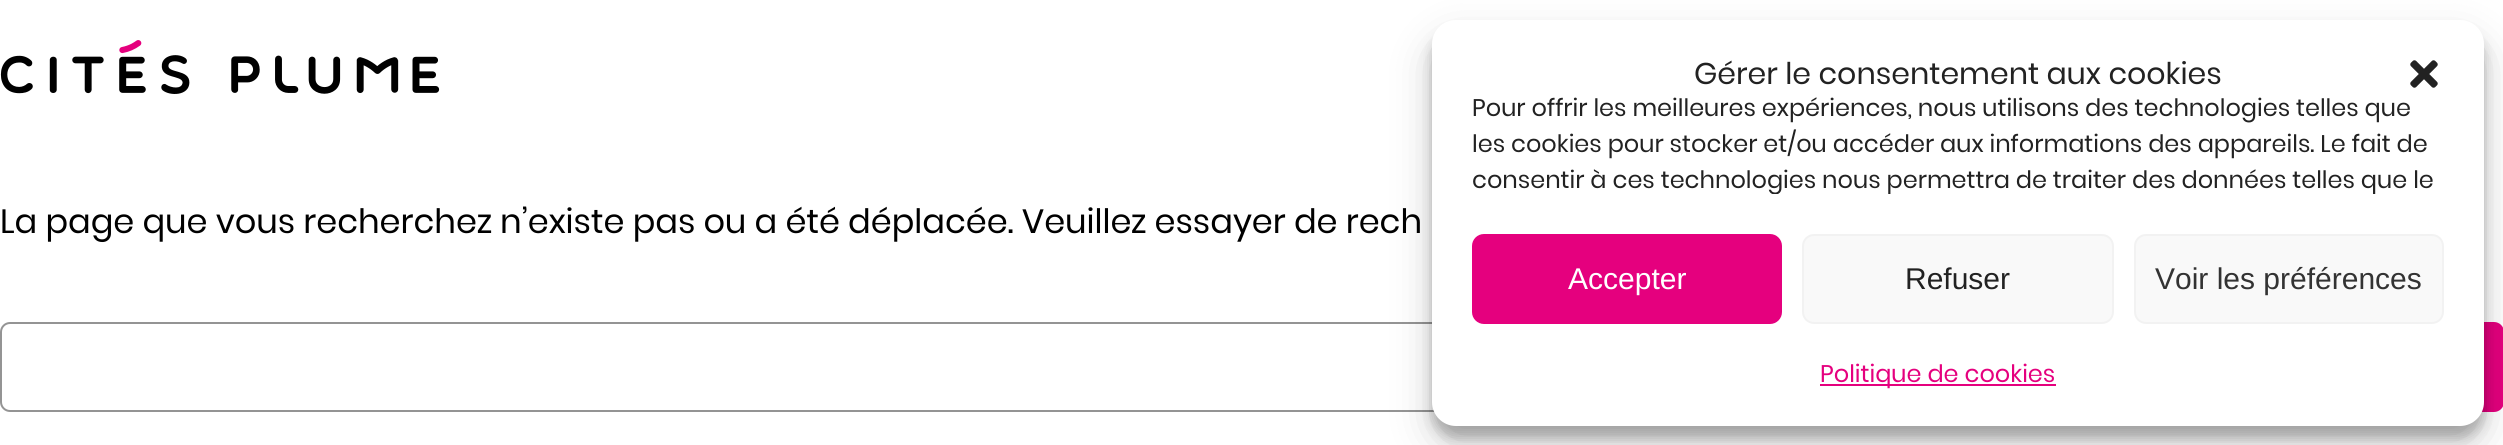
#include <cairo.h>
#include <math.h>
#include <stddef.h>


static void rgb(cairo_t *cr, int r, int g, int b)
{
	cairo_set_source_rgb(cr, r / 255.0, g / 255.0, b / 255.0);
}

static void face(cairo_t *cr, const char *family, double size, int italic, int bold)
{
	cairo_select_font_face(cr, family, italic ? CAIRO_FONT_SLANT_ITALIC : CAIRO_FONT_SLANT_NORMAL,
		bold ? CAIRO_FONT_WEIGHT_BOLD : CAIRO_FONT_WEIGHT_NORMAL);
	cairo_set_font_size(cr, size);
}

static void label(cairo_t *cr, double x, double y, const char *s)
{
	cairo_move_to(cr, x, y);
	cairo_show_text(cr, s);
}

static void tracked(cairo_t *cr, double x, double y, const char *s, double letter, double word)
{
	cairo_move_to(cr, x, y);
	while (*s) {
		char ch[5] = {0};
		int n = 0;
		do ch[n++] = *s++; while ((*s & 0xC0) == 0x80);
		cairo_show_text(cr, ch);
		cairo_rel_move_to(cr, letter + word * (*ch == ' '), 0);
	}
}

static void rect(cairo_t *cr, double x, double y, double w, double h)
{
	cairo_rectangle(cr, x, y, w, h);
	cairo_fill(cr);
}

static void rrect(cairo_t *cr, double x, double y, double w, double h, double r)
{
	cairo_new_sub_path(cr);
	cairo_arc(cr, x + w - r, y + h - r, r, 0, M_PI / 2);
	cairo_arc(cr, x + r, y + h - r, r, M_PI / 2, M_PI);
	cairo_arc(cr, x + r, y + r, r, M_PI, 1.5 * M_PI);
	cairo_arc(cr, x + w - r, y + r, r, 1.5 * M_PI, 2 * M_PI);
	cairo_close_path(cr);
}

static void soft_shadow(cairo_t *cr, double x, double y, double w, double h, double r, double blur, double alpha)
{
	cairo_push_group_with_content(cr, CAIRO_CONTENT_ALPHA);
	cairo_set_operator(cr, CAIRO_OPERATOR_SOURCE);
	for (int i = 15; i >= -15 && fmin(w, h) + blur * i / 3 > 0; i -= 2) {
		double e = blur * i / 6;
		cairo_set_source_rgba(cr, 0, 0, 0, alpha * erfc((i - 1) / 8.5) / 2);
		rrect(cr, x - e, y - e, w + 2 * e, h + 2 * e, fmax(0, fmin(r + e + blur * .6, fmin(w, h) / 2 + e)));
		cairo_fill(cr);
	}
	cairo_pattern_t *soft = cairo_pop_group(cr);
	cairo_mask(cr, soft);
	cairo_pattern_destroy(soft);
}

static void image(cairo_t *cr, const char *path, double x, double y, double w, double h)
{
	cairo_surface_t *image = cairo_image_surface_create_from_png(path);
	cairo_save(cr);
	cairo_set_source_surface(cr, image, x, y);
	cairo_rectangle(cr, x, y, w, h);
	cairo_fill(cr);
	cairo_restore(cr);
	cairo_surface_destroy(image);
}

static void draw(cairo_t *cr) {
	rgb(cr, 255, 255, 255);
	cairo_paint(cr);
	image(cr, "image0.png", 0, 40, 440, 54);
	face(cr, "Poppins", 33.6, 0, 0);
	rgb(cr, 0, 0, 0);
	tracked(cr, 0, 233, "La page que vous recherchez n’existe pas ou a été déplacée. Veuillez essayer de rech", 0, -0.1);
	rrect(cr, 1, 323, 2218, 88, 9);
	rgb(cr, 148, 148, 148);
	cairo_stroke(cr);
	rgb(cr, 229, 0, 126);
	rrect(cr, 2240, 322, 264, 90, 10);
	cairo_fill(cr);
	rgb(cr, 0, 0, 0);
	soft_shadow(cr, 1432, 32, 1052, 406, 24, 6, 0.23);
	soft_shadow(cr, 1432, 40, 1052, 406, 24, 20, 0.19);
	rgb(cr, 255, 255, 255);
	rrect(cr, 1432, 20, 1052, 406, 24);
	cairo_fill(cr);
	face(cr, "Poppins", 30, 0, 0);
	rgb(cr, 34, 34, 34);
	label(cr, 1694, 84, "Gérer le consentement aux cookies");
	image(cr, "image1.png", 2410, 60, 28, 28);
	face(cr, "Poppins", 24, 0, 0);
	label(cr, 1472, 116, "Pour offrir les meilleures expériences, nous utilisons des technologies telles que");
	label(cr, 1472, 152, "les cookies pour stocker et/ou accéder aux informations des appareils. Le fait de");
	cairo_save(cr);
	cairo_rectangle(cr, 1472, 90, 972, 104);
	cairo_clip(cr);
	label(cr, 1472, 188, "consentir à ces technologies nous permettra de traiter des données telles que le");
	cairo_restore(cr);
	rgb(cr, 229, 0, 126);
	rrect(cr, 1473, 235, 308, 88, 11);
	cairo_fill_preserve(cr);
	cairo_stroke(cr);
	face(cr, "Liberation Sans", 30, 0, 0);
	rgb(cr, 255, 255, 255);
	label(cr, 1568, 289, "Accepter");
	rgb(cr, 249, 249, 249);
	rrect(cr, 1803, 235, 310, 88, 11);
	cairo_fill_preserve(cr);
	rgb(cr, 242, 242, 242);
	cairo_stroke(cr);
	rgb(cr, 34, 34, 34);
	label(cr, 1905, 289, "Refuser");
	rgb(cr, 249, 249, 249);
	rrect(cr, 2135, 235, 308, 88, 11);
	cairo_fill_preserve(cr);
	rgb(cr, 242, 242, 242);
	cairo_stroke(cr);
	rgb(cr, 51, 51, 51);
	label(cr, 2155, 289, "Voir les préférences");
	rgb(cr, 229, 0, 126);
	rect(cr, 1820, 384, 236, 2);
	face(cr, "Poppins", 24, 0, 0);
	label(cr, 1820, 382, "Politique de cookies");
}

int main(void) {
	cairo_surface_t *surface = cairo_image_surface_create(CAIRO_FORMAT_RGB24, 2503, 445);
	cairo_t *cr = cairo_create(surface);
	cairo_font_options_t *options = cairo_font_options_create();
	cairo_font_options_set_hint_metrics(options, CAIRO_HINT_METRICS_OFF);
	cairo_font_options_set_hint_style(options, CAIRO_HINT_STYLE_NONE);
	cairo_set_font_options(cr, options);
	cairo_set_miter_limit(cr, 4);
	draw(cr);
	cairo_surface_write_to_png(surface, "render.png");
	cairo_font_options_destroy(options);
	cairo_destroy(cr);
	cairo_surface_destroy(surface);
	return 0;
}
